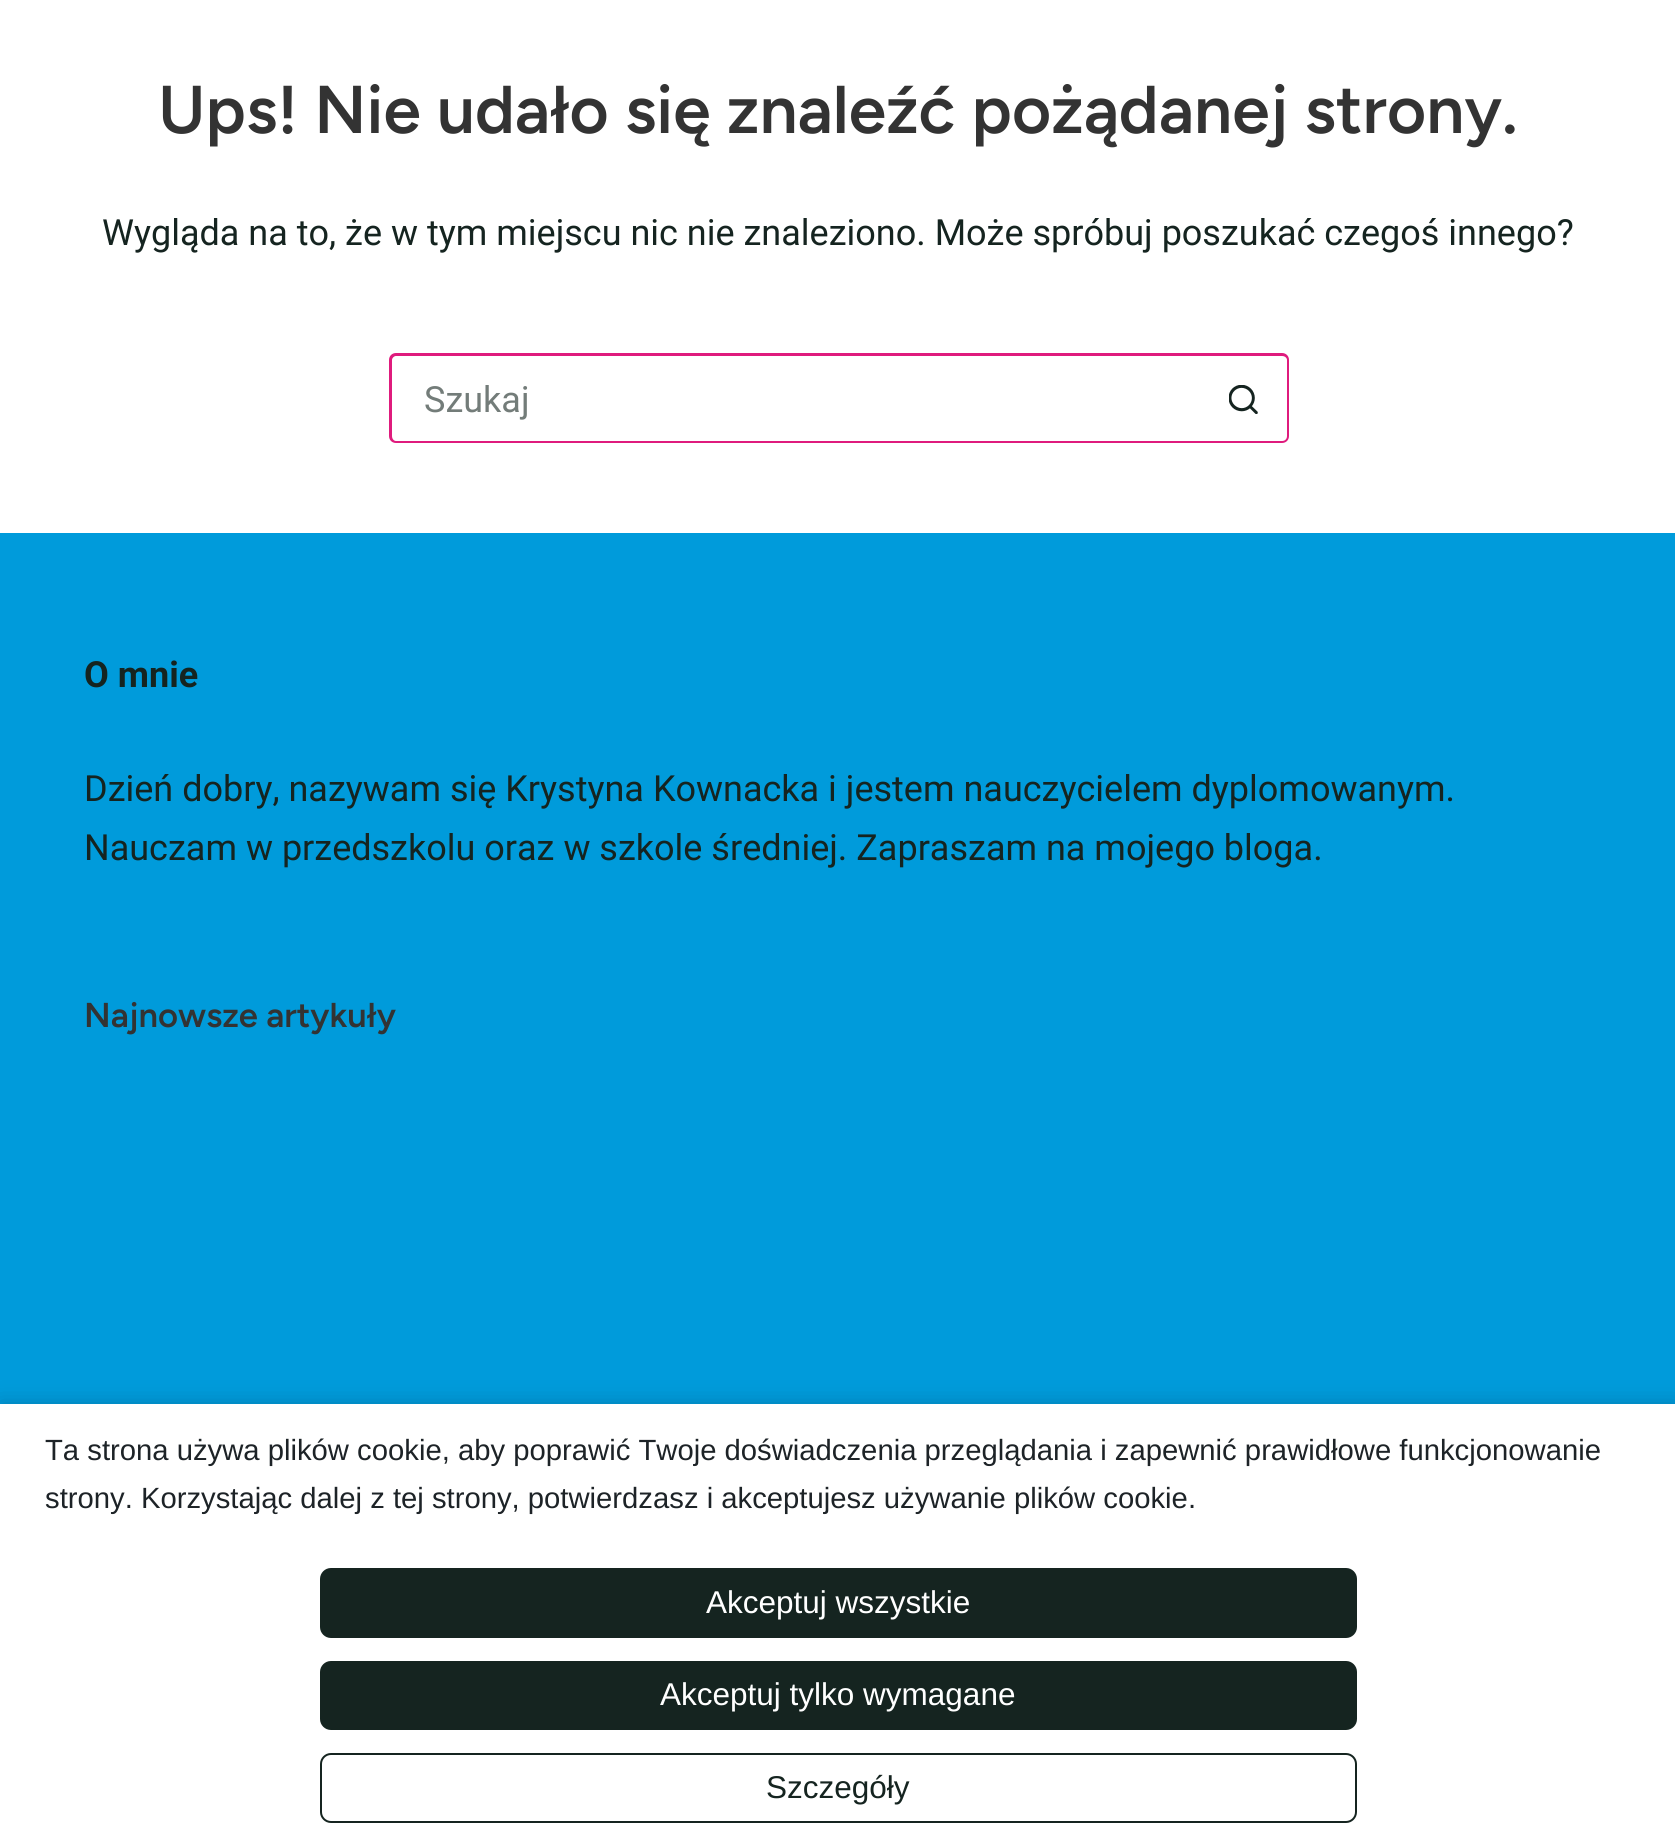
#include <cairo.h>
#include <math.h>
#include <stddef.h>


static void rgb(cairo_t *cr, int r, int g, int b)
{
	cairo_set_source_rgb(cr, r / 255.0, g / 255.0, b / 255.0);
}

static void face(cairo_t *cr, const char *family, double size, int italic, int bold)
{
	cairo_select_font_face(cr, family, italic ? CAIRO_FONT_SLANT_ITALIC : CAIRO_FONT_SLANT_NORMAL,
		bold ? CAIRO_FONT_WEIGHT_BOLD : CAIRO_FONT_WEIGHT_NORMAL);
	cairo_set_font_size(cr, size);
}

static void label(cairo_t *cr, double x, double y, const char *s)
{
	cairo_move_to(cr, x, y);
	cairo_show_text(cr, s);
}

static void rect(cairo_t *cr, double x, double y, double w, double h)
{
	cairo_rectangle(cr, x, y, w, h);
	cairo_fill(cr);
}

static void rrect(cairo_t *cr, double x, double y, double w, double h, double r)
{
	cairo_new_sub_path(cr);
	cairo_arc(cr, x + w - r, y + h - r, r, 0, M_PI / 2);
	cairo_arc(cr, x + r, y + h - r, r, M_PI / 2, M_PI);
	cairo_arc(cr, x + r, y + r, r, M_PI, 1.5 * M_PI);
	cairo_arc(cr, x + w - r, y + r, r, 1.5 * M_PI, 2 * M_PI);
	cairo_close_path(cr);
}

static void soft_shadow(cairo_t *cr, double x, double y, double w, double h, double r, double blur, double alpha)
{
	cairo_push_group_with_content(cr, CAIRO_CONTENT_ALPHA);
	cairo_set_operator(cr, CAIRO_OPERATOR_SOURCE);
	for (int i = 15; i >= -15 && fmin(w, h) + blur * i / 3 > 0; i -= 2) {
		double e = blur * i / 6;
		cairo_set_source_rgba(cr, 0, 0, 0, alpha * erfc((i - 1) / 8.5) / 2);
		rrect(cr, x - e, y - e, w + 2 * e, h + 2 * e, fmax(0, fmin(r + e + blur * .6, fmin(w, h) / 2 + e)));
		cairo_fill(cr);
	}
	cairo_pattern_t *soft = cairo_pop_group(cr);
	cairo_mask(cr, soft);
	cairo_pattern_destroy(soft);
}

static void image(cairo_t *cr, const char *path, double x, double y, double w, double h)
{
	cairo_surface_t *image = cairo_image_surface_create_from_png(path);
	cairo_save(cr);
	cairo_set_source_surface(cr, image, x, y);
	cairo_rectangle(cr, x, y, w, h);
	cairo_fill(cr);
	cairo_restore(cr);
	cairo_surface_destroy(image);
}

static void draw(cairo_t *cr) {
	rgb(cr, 255, 255, 255);
	cairo_paint(cr);
	face(cr, "Figtree SemiBold", 67.5, 0, 0);
	rgb(cr, 51, 51, 51);
	label(cr, 158, 133, "Ups! Nie udało się znaleźć pożądanej strony.");
	face(cr, "Roboto", 36, 0, 0);
	rgb(cr, 21, 36, 32);
	label(cr, 102, 245, "Wygląda na to, że w tym miejscu nic nie znaleziono. Może spróbuj poszukać czegoś innego?");
	rgb(cr, 223, 27, 125);
	cairo_set_fill_rule(cr, CAIRO_FILL_RULE_EVEN_ODD);
	cairo_new_path(cr);
	cairo_move_to(cr, 396, 353);
	cairo_line_to(cr, 1199, 353);
	cairo_line_to(cr, 1199, 443);
	cairo_line_to(cr, 396, 443);
	cairo_curve_to(cr, 392, 443, 389, 440, 389, 436);
	cairo_line_to(cr, 389, 360);
	cairo_curve_to(cr, 389, 356, 392, 353, 396, 353);
	cairo_close_path(cr);
	cairo_move_to(cr, 396, 356);
	cairo_line_to(cr, 1199, 356);
	cairo_line_to(cr, 1199, 441);
	cairo_line_to(cr, 396, 441);
	cairo_curve_to(cr, 394, 441, 392, 439, 392, 436);
	cairo_line_to(cr, 392, 360);
	cairo_curve_to(cr, 392, 358, 394, 356, 396, 356);
	cairo_close_path(cr);
	cairo_fill(cr);
	rgb(cr, 115, 124, 121);
	label(cr, 424, 412, "Szukaj");
	rgb(cr, 223, 27, 125);
	cairo_new_path(cr);
	cairo_move_to(cr, 1199, 353);
	cairo_line_to(cr, 1282, 353);
	cairo_curve_to(cr, 1286, 353, 1289, 356, 1289, 360);
	cairo_line_to(cr, 1289, 436);
	cairo_curve_to(cr, 1289, 440, 1286, 443, 1282, 443);
	cairo_line_to(cr, 1199, 443);
	cairo_close_path(cr);
	cairo_move_to(cr, 1199, 356);
	cairo_line_to(cr, 1282, 356);
	cairo_curve_to(cr, 1285, 356, 1287, 358, 1287, 360);
	cairo_line_to(cr, 1287, 436);
	cairo_curve_to(cr, 1287, 439, 1285, 441, 1282, 441);
	cairo_line_to(cr, 1199, 441);
	cairo_close_path(cr);
	cairo_fill(cr);
	image(cr, "image0.png", 1229, 385, 29, 29);
	rgb(cr, 0, 155, 219);
	rect(cr, 0, 533, 1675, 871);
	face(cr, "Roboto", 36, 0, 1);
	rgb(cr, 21, 36, 32);
	label(cr, 84, 687, "O mnie");
	face(cr, "Roboto", 36, 0, 0);
	label(cr, 84, 801, "Dzień dobry, nazywam się Krystyna Kownacka i jestem nauczycielem dyplomowanym.");
	label(cr, 84, 860, "Nauczam w przedszkolu oraz w szkole średniej. Zapraszam na mojego bloga.");
	face(cr, "Figtree SemiBold", 34.5, 0, 0);
	rgb(cr, 51, 51, 51);
	label(cr, 84, 1027, "Najnowsze artykuły");
	rgb(cr, 0, 0, 0);
	soft_shadow(cr, 0, 1404, 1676, 441, 0, 11, 0.2);
	rgb(cr, 255, 255, 255);
	rect(cr, 0, 1404, 1675, 441);
	face(cr, "Liberation Sans", 29.25, 0, 0);
	rgb(cr, 29, 35, 39);
	label(cr, 45, 1460, "Ta strona używa plików cookie, aby poprawić Twoje doświadczenia przeglądania i zapewnić prawidłowe funkcjonowanie");
	label(cr, 45, 1508, "strony. Korzystając dalej z tej strony, potwierdzasz i akceptujesz używanie plików cookie.");
	rgb(cr, 21, 36, 32);
	rrect(cr, 321, 1569, 1035, 68, 10);
	cairo_fill_preserve(cr);
	cairo_stroke(cr);
	face(cr, "Liberation Sans", 31.5, 0, 0);
	rgb(cr, 255, 255, 255);
	label(cr, 706, 1613, "Akceptuj wszystkie");
	rgb(cr, 21, 36, 32);
	rrect(cr, 321, 1662, 1035, 67, 10);
	cairo_fill_preserve(cr);
	cairo_stroke(cr);
	rgb(cr, 255, 255, 255);
	label(cr, 660, 1705, "Akceptuj tylko wymagane");
	rrect(cr, 321, 1754, 1035, 68, 10);
	rgb(cr, 21, 36, 32);
	cairo_stroke(cr);
	label(cr, 766, 1798, "Szczegóły");
}

int main(void) {
	cairo_surface_t *surface = cairo_image_surface_create(CAIRO_FORMAT_RGB24, 1675, 1845);
	cairo_t *cr = cairo_create(surface);
	cairo_font_options_t *options = cairo_font_options_create();
	cairo_font_options_set_hint_metrics(options, CAIRO_HINT_METRICS_OFF);
	cairo_font_options_set_hint_style(options, CAIRO_HINT_STYLE_NONE);
	cairo_set_font_options(cr, options);
	cairo_set_miter_limit(cr, 4);
	draw(cr);
	cairo_surface_write_to_png(surface, "render.png");
	cairo_font_options_destroy(options);
	cairo_destroy(cr);
	cairo_surface_destroy(surface);
	return 0;
}
